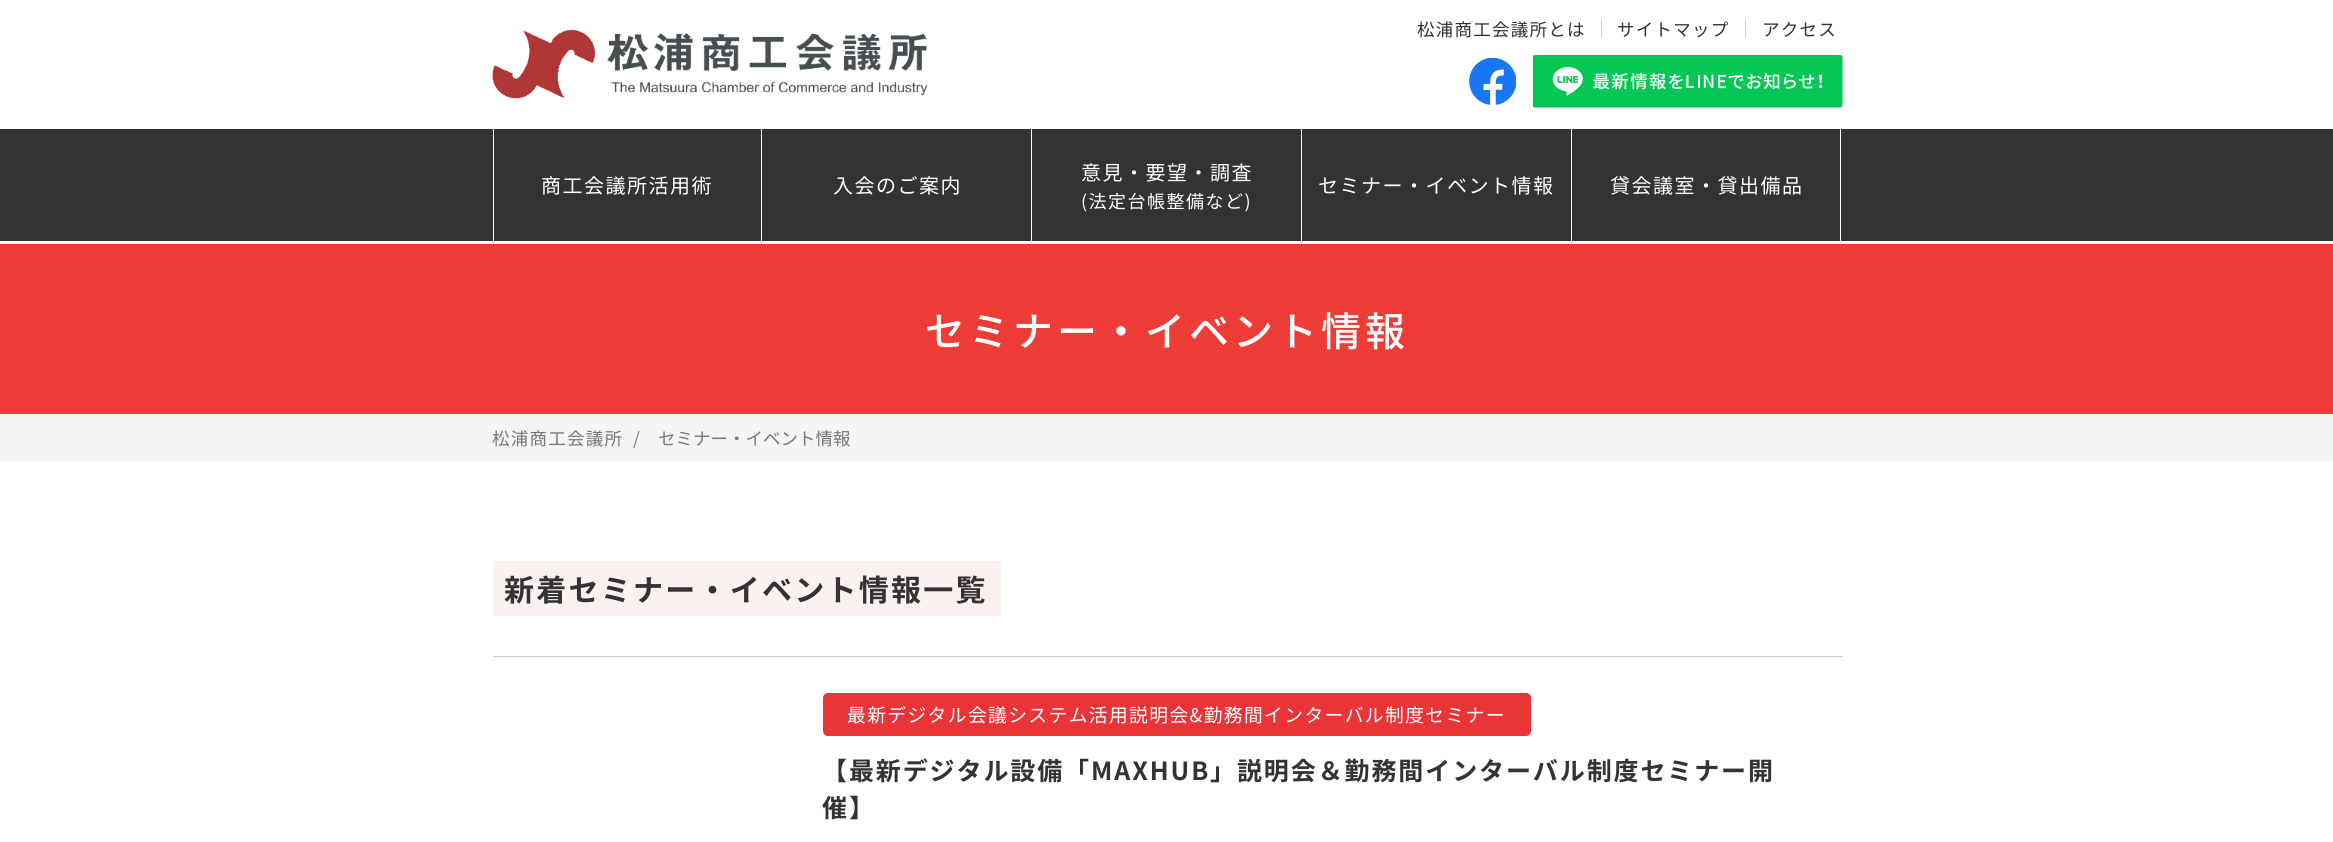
#include <cairo.h>
#include <math.h>
#include <stddef.h>


static void rgb(cairo_t *cr, int r, int g, int b)
{
	cairo_set_source_rgb(cr, r / 255.0, g / 255.0, b / 255.0);
}

static void face(cairo_t *cr, const char *family, double size, int italic, int bold)
{
	cairo_select_font_face(cr, family, italic ? CAIRO_FONT_SLANT_ITALIC : CAIRO_FONT_SLANT_NORMAL,
		bold ? CAIRO_FONT_WEIGHT_BOLD : CAIRO_FONT_WEIGHT_NORMAL);
	cairo_set_font_size(cr, size);
}

static void label(cairo_t *cr, double x, double y, const char *s)
{
	cairo_move_to(cr, x, y);
	cairo_show_text(cr, s);
}

static void tracked(cairo_t *cr, double x, double y, const char *s, double letter, double word)
{
	cairo_move_to(cr, x, y);
	while (*s) {
		char ch[5] = {0};
		int n = 0;
		do ch[n++] = *s++; while ((*s & 0xC0) == 0x80);
		cairo_show_text(cr, ch);
		cairo_rel_move_to(cr, letter + word * (*ch == ' '), 0);
	}
}

static void rect(cairo_t *cr, double x, double y, double w, double h)
{
	cairo_rectangle(cr, x, y, w, h);
	cairo_fill(cr);
}

static void rrect(cairo_t *cr, double x, double y, double w, double h, double r)
{
	cairo_new_sub_path(cr);
	cairo_arc(cr, x + w - r, y + h - r, r, 0, M_PI / 2);
	cairo_arc(cr, x + r, y + h - r, r, M_PI / 2, M_PI);
	cairo_arc(cr, x + r, y + r, r, M_PI, 1.5 * M_PI);
	cairo_arc(cr, x + w - r, y + r, r, 1.5 * M_PI, 2 * M_PI);
	cairo_close_path(cr);
}

static void image(cairo_t *cr, const char *path, double x, double y, double w, double h)
{
	cairo_surface_t *image = cairo_image_surface_create_from_png(path);
	cairo_save(cr);
	cairo_set_source_surface(cr, image, x, y);
	cairo_rectangle(cr, x, y, w, h);
	cairo_fill(cr);
	cairo_restore(cr);
	cairo_surface_destroy(image);
}

static void draw(cairo_t *cr) {
	rgb(cr, 255, 255, 255);
	cairo_paint(cr);
	image(cr, "image0.png", 492, 29, 436, 70);
	face(cr, "Noto Sans JP", 17.5, 0, 0);
	rgb(cr, 51, 51, 51);
	tracked(cr, 1417, 36, "松浦商工会議所とは", 1.25, 0);
	rgb(cr, 204, 204, 204);
	rect(cr, 1601, 20, 1, 18);
	rgb(cr, 51, 51, 51);
	tracked(cr, 1617, 36, "サイトマップ", 1.25, 0);
	rgb(cr, 204, 204, 204);
	rect(cr, 1745, 20, 1, 18);
	rgb(cr, 51, 51, 51);
	tracked(cr, 1762, 36, "アクセス", 1.25, 0);
	image(cr, "image1.png", 1469, 58, 47, 47);
	image(cr, "image2.png", 1533, 55, 310, 53);
	rect(cr, 0, 129, 2333, 112);
	rgb(cr, 255, 255, 255);
	rect(cr, 493, 129, 1, 112);
	face(cr, "Noto Sans JP", 20, 0, 0);
	tracked(cr, 541, 193, "商工会議所活用術", 1.5, 0);
	rect(cr, 761, 129, 1, 112);
	tracked(cr, 833, 193, "入会のご案内", 1.5, 0);
	rect(cr, 1031, 129, 1, 112);
	tracked(cr, 1081, 180, "意見・要望・調査", 1.5, 0);
	face(cr, "Noto Sans JP", 18, 0, 0);
	tracked(cr, 1081, 208, "(法定台帳整備など)", 1.5, 0);
	rect(cr, 1301, 129, 1, 112);
	face(cr, "Noto Sans JP", 20, 0, 0);
	tracked(cr, 1318, 193, "セミナー・イベント情報", 1.5, 0);
	rect(cr, 1840, 129, 1, 112);
	rect(cr, 1571, 129, 1, 112);
	tracked(cr, 1610, 193, "貸会議室・貸出備品", 1.5, 0);
	rgb(cr, 238, 60, 55);
	rect(cr, 0, 244, 2333, 170);
	face(cr, "Noto Sans JP Medium", 40, 0, 0);
	rgb(cr, 255, 255, 255);
	tracked(cr, 925, 346, "セミナー・イベント情報", 4, 0);
	rgb(cr, 245, 245, 245);
	rect(cr, 0, 414, 2333, 47);
	face(cr, "Noto Sans JP", 17.5, 0, 0);
	rgb(cr, 119, 119, 119);
	tracked(cr, 492, 445, "松浦商工会議所", 1.25, 0);
	tracked(cr, 633, 445, "/", 1.25, 0);
	label(cr, 658, 445, "セミナー・イベント情報");
	rgb(cr, 251, 241, 241);
	rect(cr, 493, 561, 508, 55);
	face(cr, "Noto Sans JP", 30, 0, 1);
	rgb(cr, 51, 51, 51);
	tracked(cr, 504, 601, "新着セミナー・イベント情報一覧", 2.25, 0);
	rgb(cr, 204, 204, 204);
	rect(cr, 493, 656, 1350, 1);
	rgb(cr, 234, 53, 56);
	rrect(cr, 823, 693, 708, 43, 5);
	cairo_fill(cr);
	face(cr, "Noto Sans JP", 18.75, 0, 0);
	rgb(cr, 255, 255, 255);
	tracked(cr, 847, 722, "最新デジタル会議システム活用説明会&勤務間インターバル制度セミナー", 1.4, 0);
	face(cr, "Noto Sans JP", 25, 0, 1);
	rgb(cr, 51, 51, 51);
	tracked(cr, 822, 780, "【最新デジタル設備「MAXHUB」説明会＆勤務間インターバル制度セミナー開", 1.9, 0);
	tracked(cr, 822, 817, "催】", 1.9, 0);
}

int main(void) {
	cairo_surface_t *surface = cairo_image_surface_create(CAIRO_FORMAT_RGB24, 2333, 842);
	cairo_t *cr = cairo_create(surface);
	cairo_font_options_t *options = cairo_font_options_create();
	cairo_font_options_set_hint_metrics(options, CAIRO_HINT_METRICS_OFF);
	cairo_font_options_set_hint_style(options, CAIRO_HINT_STYLE_NONE);
	cairo_set_font_options(cr, options);
	cairo_set_miter_limit(cr, 4);
	draw(cr);
	cairo_surface_write_to_png(surface, "render.png");
	cairo_font_options_destroy(options);
	cairo_destroy(cr);
	cairo_surface_destroy(surface);
	return 0;
}
